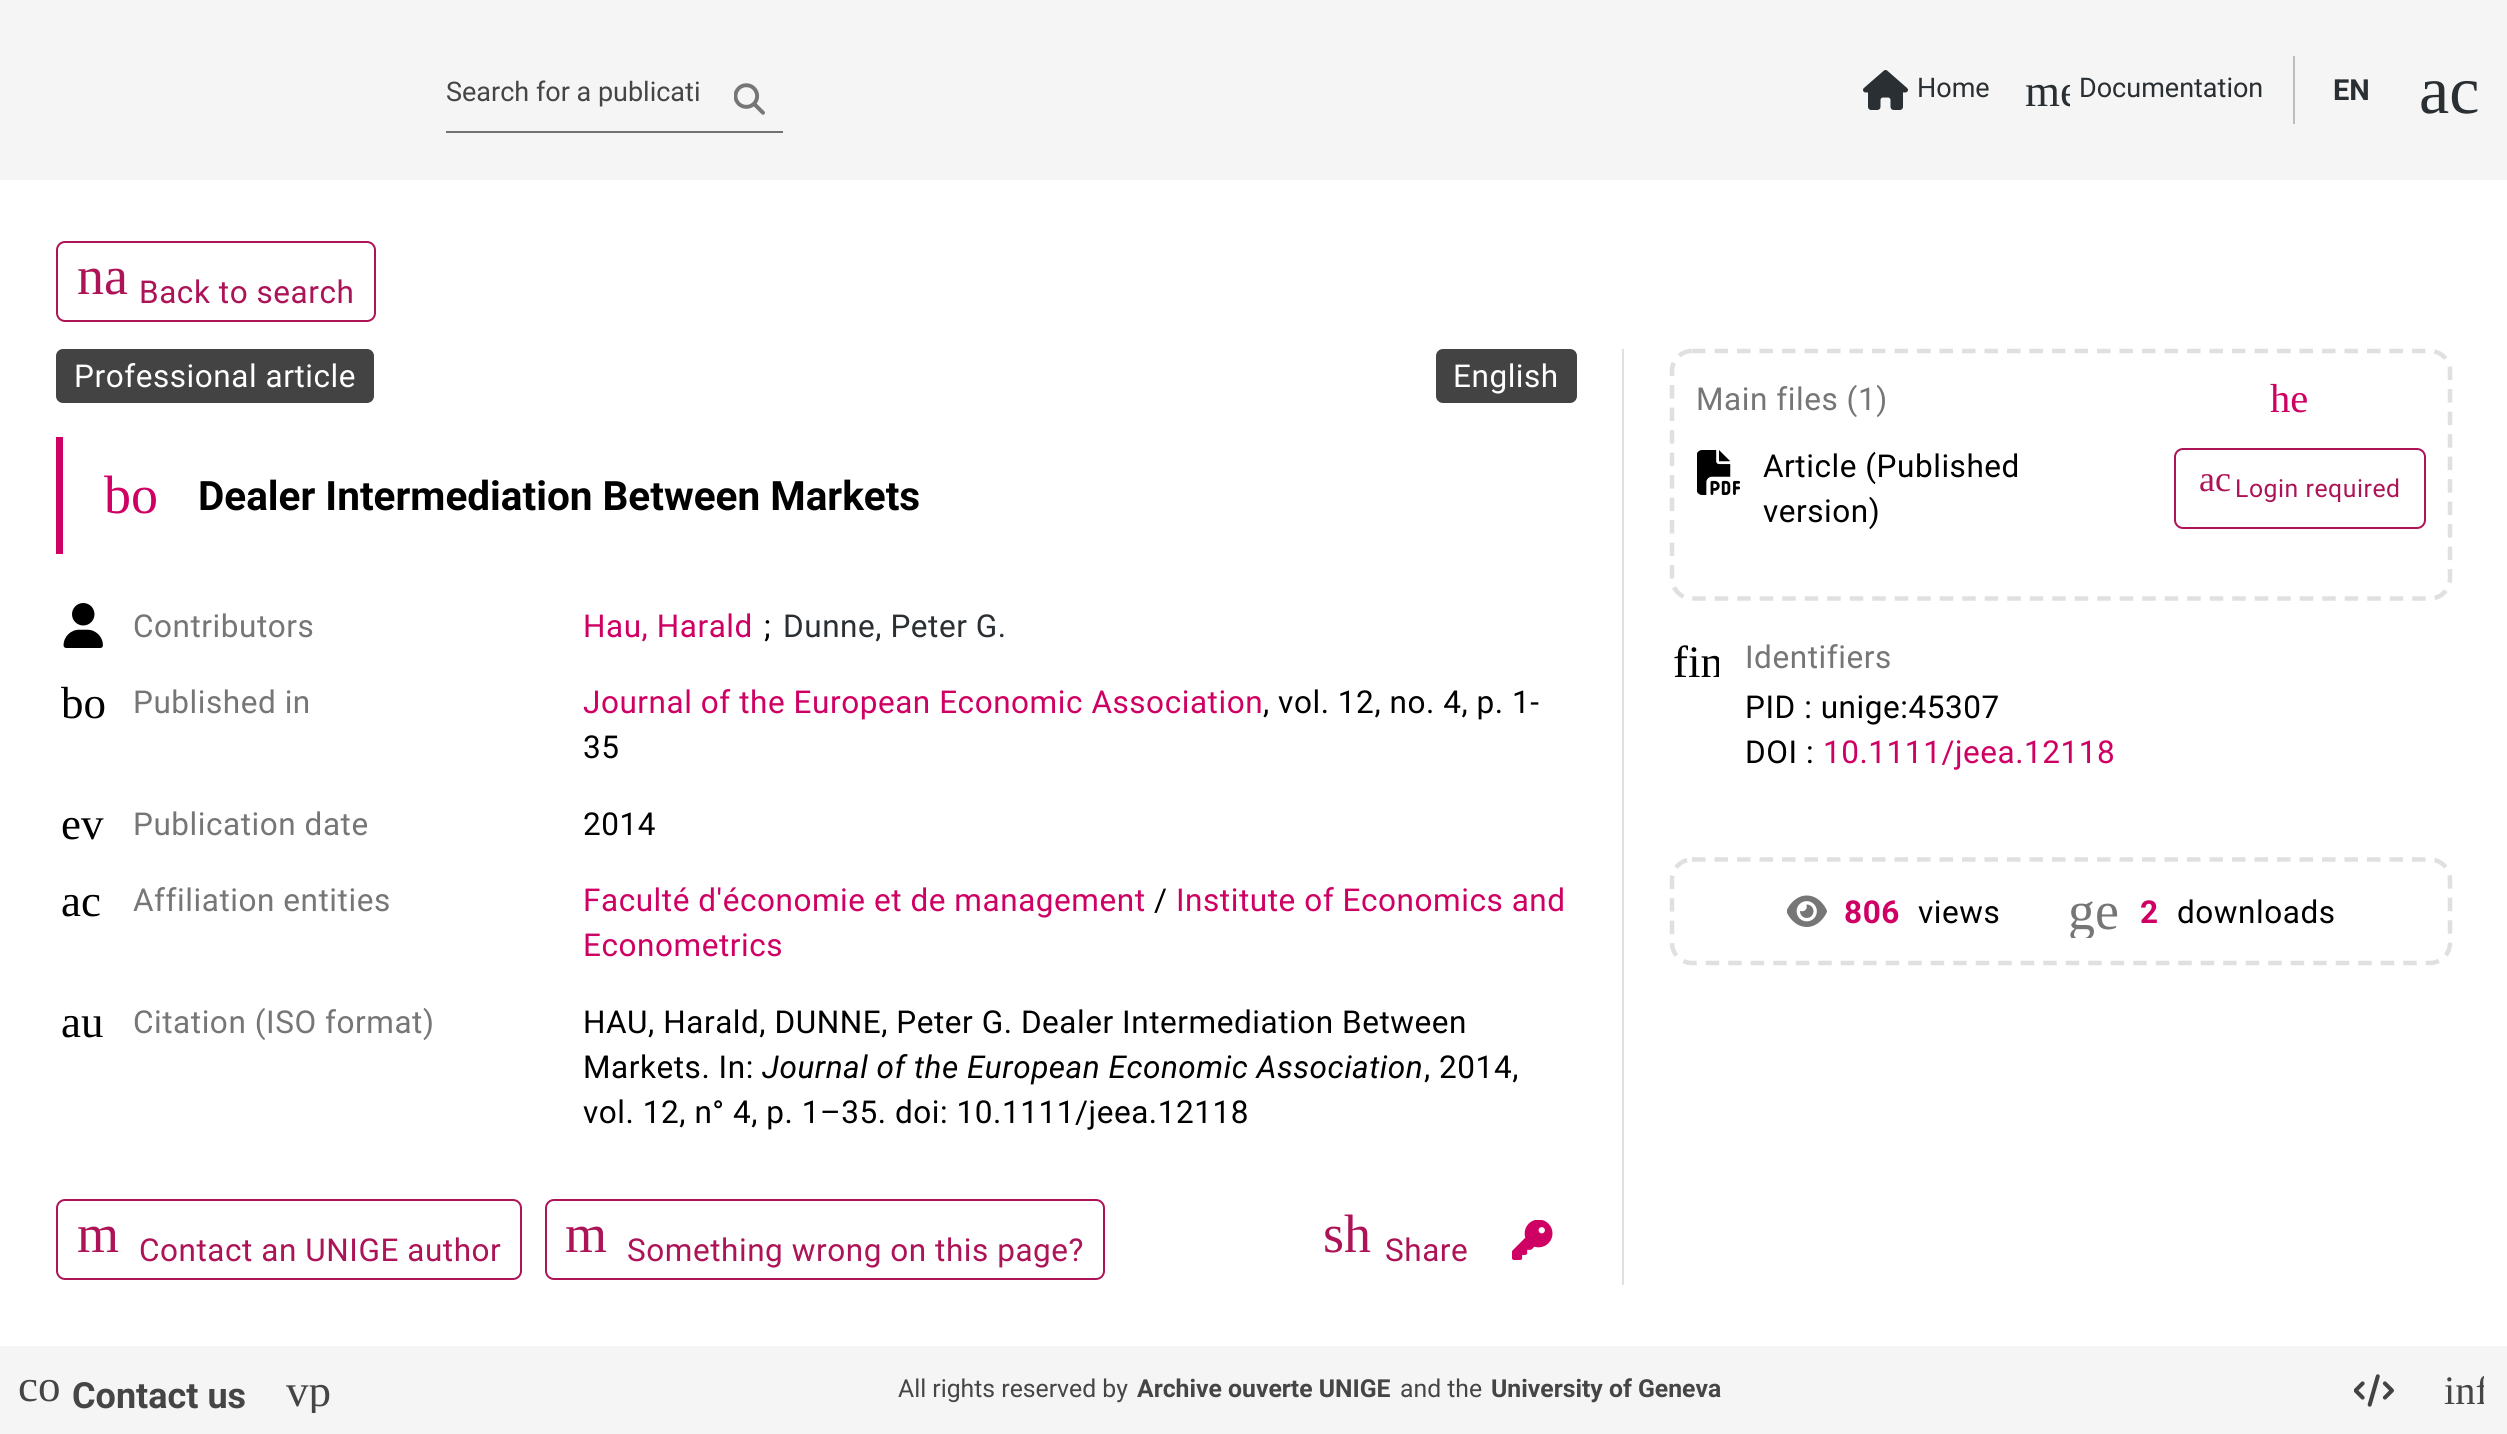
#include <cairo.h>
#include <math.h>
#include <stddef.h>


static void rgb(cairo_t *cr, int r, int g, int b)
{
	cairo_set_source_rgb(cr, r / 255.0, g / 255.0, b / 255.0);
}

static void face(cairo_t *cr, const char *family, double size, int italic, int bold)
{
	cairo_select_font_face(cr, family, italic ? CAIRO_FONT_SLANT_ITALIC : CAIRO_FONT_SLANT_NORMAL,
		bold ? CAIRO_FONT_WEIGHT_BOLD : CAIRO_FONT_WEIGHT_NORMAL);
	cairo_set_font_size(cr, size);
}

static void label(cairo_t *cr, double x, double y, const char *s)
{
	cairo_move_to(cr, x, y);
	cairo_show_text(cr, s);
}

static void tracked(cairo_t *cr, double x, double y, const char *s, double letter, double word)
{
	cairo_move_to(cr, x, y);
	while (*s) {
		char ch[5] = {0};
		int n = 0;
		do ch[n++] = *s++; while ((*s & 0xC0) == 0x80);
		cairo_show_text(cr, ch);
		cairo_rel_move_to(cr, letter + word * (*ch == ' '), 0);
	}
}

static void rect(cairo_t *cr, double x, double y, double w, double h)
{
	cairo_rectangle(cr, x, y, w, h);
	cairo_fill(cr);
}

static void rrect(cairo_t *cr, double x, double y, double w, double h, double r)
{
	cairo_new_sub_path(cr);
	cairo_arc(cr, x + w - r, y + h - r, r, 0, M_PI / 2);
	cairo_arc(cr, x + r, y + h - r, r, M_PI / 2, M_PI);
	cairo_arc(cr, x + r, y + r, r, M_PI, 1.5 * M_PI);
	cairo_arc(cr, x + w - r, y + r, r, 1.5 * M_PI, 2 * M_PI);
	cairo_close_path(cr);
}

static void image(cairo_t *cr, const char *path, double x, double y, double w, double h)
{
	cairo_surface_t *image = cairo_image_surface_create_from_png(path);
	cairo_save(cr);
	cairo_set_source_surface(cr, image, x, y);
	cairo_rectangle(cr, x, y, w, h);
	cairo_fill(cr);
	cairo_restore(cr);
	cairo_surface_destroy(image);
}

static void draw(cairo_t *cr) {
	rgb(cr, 255, 255, 255);
	cairo_paint(cr);
	rgb(cr, 245, 245, 245);
	rect(cr, 0, 0, 2507, 180);
	face(cr, "Roboto", 27, 0, 0);
	rgb(cr, 69, 69, 69);
	label(cr, 446, 101, "Search for a publicati");
	image(cr, "image0.png", 734, 83, 31, 32);
	rgb(cr, 113, 113, 113);
	rect(cr, 446, 131, 337, 2);
	image(cr, "image1.png", 1863, 70, 45, 40);
	rgb(cr, 41, 47, 51);
	label(cr, 1917, 97, "Home");
	cairo_save(cr);
	cairo_rectangle(cr, 2025, 68, 45, 45);
	cairo_clip(cr);
	face(cr, "Liberation Serif", 45, 0, 0);
	label(cr, 2025, 106, "me");
	cairo_restore(cr);
	label(cr, 2079, 97, "Documentation");
	rgb(cr, 189, 189, 189);
	rect(cr, 2293, 56, 2, 68);
	face(cr, "Roboto", 29, 0, 1);
	rgb(cr, 41, 47, 51);
	label(cr, 2333, 100, "EN");
	face(cr, "Liberation Serif", 68, 0, 0);
	label(cr, 2419, 113, "ac");
	rrect(cr, 57, 242, 318, 79, 8);
	rgb(cr, 173, 20, 87);
	cairo_stroke(cr);
	face(cr, "Liberation Serif", 54, 0, 0);
	label(cr, 77, 294, "na");
	face(cr, "Roboto", 31.5, 0, 0);
	tracked(cr, 139, 303, "Back to search", 0.55, 0);
	rgb(cr, 224, 224, 224);
	rect(cr, 1622, 349, 2, 936);
	rgb(cr, 67, 67, 67);
	rrect(cr, 56, 349, 318, 54, 7);
	cairo_fill(cr);
	rgb(cr, 255, 255, 255);
	tracked(cr, 74, 387, "Professional article", 0.55, 0);
	rgb(cr, 67, 67, 67);
	rrect(cr, 1436, 349, 141, 54, 7);
	cairo_fill(cr);
	rgb(cr, 255, 255, 255);
	tracked(cr, 1453, 387, "English", 0.55, 0);
	rgb(cr, 207, 0, 99);
	rect(cr, 56, 437, 7, 117);
	face(cr, "Liberation Serif", 54, 0, 0);
	label(cr, 104, 513, "bo");
	face(cr, "Roboto", 40.5, 0, 1);
	rgb(cr, 0, 0, 0);
	label(cr, 198, 510, "Dealer Intermediation Between Markets");
	image(cr, "image2.png", 63, 603, 40, 45);
	face(cr, "Roboto", 31.5, 0, 0);
	rgb(cr, 118, 118, 118);
	tracked(cr, 133, 637, "Contributors", 0.55, 0);
	rgb(cr, 207, 0, 99);
	tracked(cr, 583, 637, "Hau, Harald", 0.55, 0);
	rgb(cr, 0, 0, 0);
	tracked(cr, 764, 637, ";", 0.55, 0);
	rgb(cr, 41, 47, 51);
	tracked(cr, 783, 637, "Dunne, Peter G.", 0.55, 0);
	face(cr, "Liberation Serif", 45, 0, 0);
	rgb(cr, 0, 0, 0);
	label(cr, 61, 718, "bo");
	face(cr, "Roboto", 31.5, 0, 0);
	rgb(cr, 118, 118, 118);
	tracked(cr, 133, 713, "Published in", 0.55, 0);
	rgb(cr, 207, 0, 99);
	tracked(cr, 583, 713, "Journal of the European Economic Association", 0.55, 0);
	rgb(cr, 0, 0, 0);
	tracked(cr, 1263, 713, ", vol. 12, no. 4, p. 1-", 0.55, 0);
	tracked(cr, 583, 758, "35", 0.55, 0);
	face(cr, "Liberation Serif", 45, 0, 0);
	label(cr, 61, 839, "ev");
	face(cr, "Roboto", 31.5, 0, 0);
	rgb(cr, 118, 118, 118);
	tracked(cr, 133, 835, "Publication date", 0.55, 0);
	rgb(cr, 0, 0, 0);
	tracked(cr, 583, 835, "2014", 0.55, 0);
	face(cr, "Liberation Serif", 45, 0, 0);
	label(cr, 61, 916, "ac");
	face(cr, "Roboto", 31.5, 0, 0);
	rgb(cr, 118, 118, 118);
	tracked(cr, 133, 911, "Affiliation entities", 0.55, 0);
	rgb(cr, 207, 0, 99);
	tracked(cr, 583, 911, "Faculté d'économie et de management", 0.55, 0);
	rgb(cr, 0, 0, 0);
	tracked(cr, 1154, 911, "/", 0.55, 0);
	rgb(cr, 207, 0, 99);
	tracked(cr, 1176, 911, "Institute of Economics and", 0.55, 0);
	tracked(cr, 583, 956, "Econometrics", 0.55, 0);
	face(cr, "Liberation Serif", 45, 0, 0);
	rgb(cr, 0, 0, 0);
	label(cr, 61, 1037, "au");
	face(cr, "Roboto", 31.5, 0, 0);
	rgb(cr, 118, 118, 118);
	tracked(cr, 133, 1033, "Citation (ISO format)", 0.55, 0);
	rgb(cr, 0, 0, 0);
	tracked(cr, 583, 1033, "HAU, Harald, DUNNE, Peter G. Dealer Intermediation Between", 0.55, 0);
	tracked(cr, 583, 1078, "Markets. In:", 0.55, 0);
	face(cr, "Roboto", 31.5, 1, 0);
	tracked(cr, 762, 1078, "Journal of the European Economic Association", 0.55, 0);
	face(cr, "Roboto", 31.5, 0, 0);
	tracked(cr, 1424, 1078, ", 2014,", 0.55, 0);
	tracked(cr, 583, 1123, "vol. 12, n° 4, p. 1–35. doi: 10.1111/jeea.12118", 0.55, 0);
	rrect(cr, 57, 1200, 464, 79, 8);
	rgb(cr, 173, 20, 87);
	cairo_stroke(cr);
	face(cr, "Liberation Serif", 54, 0, 0);
	label(cr, 77, 1252, "m");
	face(cr, "Roboto", 31.5, 0, 0);
	tracked(cr, 139, 1261, "Contact an UNIGE author", 0.55, 0);
	rrect(cr, 546, 1200, 558, 79, 8);
	cairo_stroke(cr);
	face(cr, "Liberation Serif", 54, 0, 0);
	label(cr, 565, 1252, "m");
	face(cr, "Roboto", 31.5, 0, 0);
	tracked(cr, 627, 1261, "Something wrong on this page?", 0.55, 0);
	face(cr, "Liberation Serif", 54, 0, 0);
	label(cr, 1323, 1252, "sh");
	face(cr, "Roboto", 31.5, 0, 0);
	tracked(cr, 1385, 1261, "Share", 0.55, 0);
	image(cr, "image3.png", 1512, 1220, 41, 40);
	cairo_new_path(cr);
	cairo_move_to(cr, 1692, 351);
	cairo_line_to(cr, 2430, 351);
	cairo_curve_to(cr, 2441, 351, 2450, 360, 2450, 371);
	cairo_line_to(cr, 2450, 578);
	cairo_curve_to(cr, 2450, 589.5, 2441, 598.5, 2430, 598.5);
	cairo_line_to(cr, 1692, 598.5);
	cairo_curve_to(cr, 1681, 598.5, 1672, 589.5, 1672, 578);
	cairo_line_to(cr, 1672, 371);
	cairo_curve_to(cr, 1672, 360, 1681, 351, 1692, 351);
	cairo_close_path(cr);
	rgb(cr, 224, 224, 224);
	cairo_set_line_width(cr, 4.5);
	cairo_set_dash(cr, (double[]){13.5, 9}, 2, 0);
	cairo_stroke(cr);
	rgb(cr, 118, 118, 118);
	tracked(cr, 1696, 410, "Main files (1)", 0.55, 0);
	face(cr, "Liberation Serif", 40.5, 0, 0);
	rgb(cr, 207, 0, 99);
	label(cr, 2270, 412, "he");
	image(cr, "image4.png", 1697, 450, 44, 45);
	face(cr, "Roboto", 31.5, 0, 0);
	rgb(cr, 0, 0, 0);
	tracked(cr, 1763, 477, "Article (Published", 0.55, 0);
	tracked(cr, 1763, 522, "version)", 0.55, 0);
	rrect(cr, 2175, 449, 250, 79, 8);
	rgb(cr, 173, 20, 87);
	cairo_set_line_width(cr, 2);
	cairo_set_dash(cr, NULL, 0, 0);
	cairo_stroke(cr);
	face(cr, "Liberation Serif", 36, 0, 0);
	label(cr, 2199, 491, "ac");
	face(cr, "Roboto", 24.75, 0, 0);
	tracked(cr, 2235, 497, "Login required", 0.55, 0);
	cairo_save(cr);
	cairo_rectangle(cr, 1674, 639, 45, 45);
	cairo_clip(cr);
	face(cr, "Liberation Serif", 45, 0, 0);
	rgb(cr, 0, 0, 0);
	label(cr, 1673, 677, "fin");
	cairo_restore(cr);
	face(cr, "Roboto", 31.5, 0, 0);
	rgb(cr, 118, 118, 118);
	tracked(cr, 1745, 668, "Identifiers", 0.55, 0);
	rgb(cr, 0, 0, 0);
	tracked(cr, 1745, 718, "PID : unige:45307", 0.55, 0);
	tracked(cr, 1745, 763, "DOI :", 0.55, 0);
	rgb(cr, 207, 0, 99);
	tracked(cr, 1823, 763, "10.1111/jeea.12118", 0.55, 0);
	cairo_new_path(cr);
	cairo_move_to(cr, 1692, 859.5);
	cairo_line_to(cr, 2430, 859.5);
	cairo_curve_to(cr, 2441, 859.5, 2450, 868.5, 2450, 880);
	cairo_line_to(cr, 2450, 943);
	cairo_curve_to(cr, 2450, 954, 2441, 963, 2430, 963);
	cairo_line_to(cr, 1692, 963);
	cairo_curve_to(cr, 1681, 963, 1672, 954, 1672, 943);
	cairo_line_to(cr, 1672, 880);
	cairo_curve_to(cr, 1672, 868.5, 1681, 859.5, 1692, 859.5);
	cairo_close_path(cr);
	rgb(cr, 224, 224, 224);
	cairo_set_line_width(cr, 4.5);
	cairo_set_dash(cr, (double[]){13.5, 9}, 2, 0);
	cairo_stroke(cr);
	image(cr, "image5.png", 1787, 895, 40, 32);
	face(cr, "Roboto", 31.5, 0, 1);
	rgb(cr, 207, 0, 99);
	tracked(cr, 1844, 923, "806", 0.55, 0);
	face(cr, "Roboto", 31.5, 0, 0);
	rgb(cr, 0, 0, 0);
	tracked(cr, 1918, 923, "views", 0.55, 0);
	cairo_save(cr);
	cairo_rectangle(cr, 2068, 884, 54, 54);
	cairo_clip(cr);
	face(cr, "Liberation Serif", 54, 0, 0);
	rgb(cr, 118, 118, 118);
	label(cr, 2068, 929, "ge");
	cairo_restore(cr);
	face(cr, "Roboto", 31.5, 0, 1);
	rgb(cr, 207, 0, 99);
	tracked(cr, 2140, 923, "2", 0.55, 0);
	face(cr, "Roboto", 31.5, 0, 0);
	rgb(cr, 0, 0, 0);
	tracked(cr, 2177, 923, "downloads", 0.55, 0);
	rgb(cr, 245, 245, 245);
	rect(cr, 0, 1346, 2507, 88);
	face(cr, "Liberation Serif", 45, 0, 0);
	rgb(cr, 69, 69, 69);
	label(cr, 18, 1401, "co");
	face(cr, "Roboto", 36, 0, 1);
	label(cr, 72, 1408, "Contact us");
	cairo_save(cr);
	cairo_rectangle(cr, 286, 1368, 45, 45);
	cairo_clip(cr);
	face(cr, "Liberation Serif", 45, 0, 0);
	label(cr, 286, 1406, "vp");
	cairo_restore(cr);
	face(cr, "Roboto", 24.75, 0, 0);
	label(cr, 898, 1397, "All rights reserved by");
	face(cr, "Roboto", 24.75, 0, 1);
	label(cr, 1137, 1397, "Archive ouverte UNIGE");
	face(cr, "Roboto", 24.75, 0, 0);
	label(cr, 1400, 1397, "and the");
	face(cr, "Roboto", 24.75, 0, 1);
	label(cr, 1491, 1397, "University of Geneva");
	image(cr, "image6.png", 2354, 1374, 40, 33);
	cairo_save(cr);
	cairo_rectangle(cr, 2444, 1370, 40, 41);
	cairo_clip(cr);
	face(cr, "Liberation Serif", 40.5, 0, 0);
	label(cr, 2444, 1404, "inf");
	cairo_restore(cr);
}

int main(void) {
	cairo_surface_t *surface = cairo_image_surface_create(CAIRO_FORMAT_RGB24, 2507, 1434);
	cairo_t *cr = cairo_create(surface);
	cairo_font_options_t *options = cairo_font_options_create();
	cairo_font_options_set_hint_metrics(options, CAIRO_HINT_METRICS_OFF);
	cairo_font_options_set_hint_style(options, CAIRO_HINT_STYLE_NONE);
	cairo_set_font_options(cr, options);
	cairo_set_miter_limit(cr, 4);
	draw(cr);
	cairo_surface_write_to_png(surface, "render.png");
	cairo_font_options_destroy(options);
	cairo_destroy(cr);
	cairo_surface_destroy(surface);
	return 0;
}
